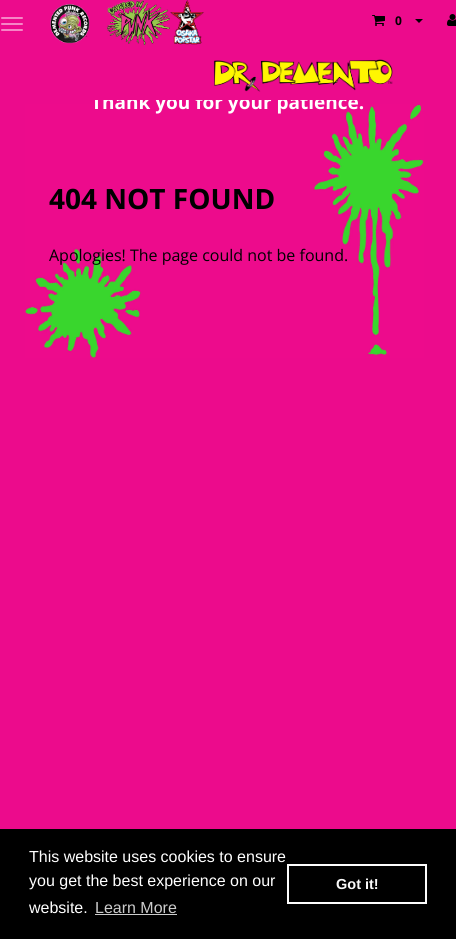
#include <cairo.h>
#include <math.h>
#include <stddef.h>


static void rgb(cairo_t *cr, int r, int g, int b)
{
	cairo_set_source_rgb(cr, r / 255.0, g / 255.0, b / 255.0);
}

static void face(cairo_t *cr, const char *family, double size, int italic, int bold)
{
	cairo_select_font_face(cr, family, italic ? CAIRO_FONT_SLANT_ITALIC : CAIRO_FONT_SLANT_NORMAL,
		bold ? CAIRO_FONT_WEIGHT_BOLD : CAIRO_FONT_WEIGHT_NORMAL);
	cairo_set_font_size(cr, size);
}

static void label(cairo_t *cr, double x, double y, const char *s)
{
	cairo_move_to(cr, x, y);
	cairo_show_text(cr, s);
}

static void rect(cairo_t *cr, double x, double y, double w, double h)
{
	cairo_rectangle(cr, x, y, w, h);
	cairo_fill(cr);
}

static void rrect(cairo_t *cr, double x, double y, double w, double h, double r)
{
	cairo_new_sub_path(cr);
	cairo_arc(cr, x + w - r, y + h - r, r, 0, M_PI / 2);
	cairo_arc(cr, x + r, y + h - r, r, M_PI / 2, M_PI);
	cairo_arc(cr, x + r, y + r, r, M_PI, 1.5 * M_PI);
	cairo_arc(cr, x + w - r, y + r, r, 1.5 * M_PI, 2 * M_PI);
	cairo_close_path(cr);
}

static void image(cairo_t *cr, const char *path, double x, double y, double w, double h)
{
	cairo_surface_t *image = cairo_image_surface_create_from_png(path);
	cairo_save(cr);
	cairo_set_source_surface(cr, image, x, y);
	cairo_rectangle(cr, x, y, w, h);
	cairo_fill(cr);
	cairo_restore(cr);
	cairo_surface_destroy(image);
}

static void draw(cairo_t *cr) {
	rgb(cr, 236, 11, 140);
	cairo_paint(cr);
	image(cr, "image0.png", 25, 104, 399, 254);
	face(cr, "Open Sans", 19, 0, 1);
	rgb(cr, 255, 255, 255);
	label(cr, 91, 109, "Thank you for your patience.");
	rgb(cr, 236, 11, 140);
	rect(cr, 91, 94, 267, 6);
	rgb(cr, 246, 133, 198);
	rrect(cr, 1, 17, 22, 2, 1);
	cairo_fill(cr);
	rrect(cr, 1, 23, 22, 2, 1);
	cairo_fill(cr);
	rrect(cr, 1, 29, 22, 2, 1);
	cairo_fill(cr);
	image(cr, "image1.png", 50, 4, 40, 40);
	image(cr, "image2.png", 107, 0, 63, 45);
	image(cr, "image3.png", 170, 0, 34, 45);
	image(cr, "image4.png", 372, 15, 13, 11);
	face(cr, "Open Sans", 12, 0, 1);
	rgb(cr, 0, 0, 0);
	label(cr, 395, 25, "0");
	cairo_new_path(cr);
	cairo_move_to(cr, 415, 19);
	cairo_line_to(cr, 423, 19);
	cairo_line_to(cr, 419, 23);
	cairo_close_path(cr);
	cairo_fill(cr);
	image(cr, "image5.png", 447, 14, 9, 12);
	image(cr, "image6.png", 213, 59, 180, 33);
	face(cr, "Open Sans", 28, 0, 1);
	label(cr, 49, 209, "404 NOT FOUND");
	face(cr, "Open Sans", 16, 0, 0);
	label(cr, 49, 261, "Apologies! The page could not be found.");
	rect(cr, 0, 829, 456, 110);
	face(cr, "Liberation Sans", 16, 0, 0);
	rgb(cr, 255, 255, 255);
	label(cr, 29, 862, "This website uses cookies to ensure");
	label(cr, 29, 886, "you get the best experience on our");
	label(cr, 29, 913, "website.");
	rgb(cr, 204, 204, 204);
	label(cr, 95, 913, "Learn More");
	rect(cr, 95, 914, 82, 1);
	cairo_rectangle(cr, 288, 865, 138, 38);
	rgb(cr, 253, 253, 253);
	cairo_stroke(cr);
	face(cr, "Liberation Sans", 14.5, 0, 1);
	rgb(cr, 249, 249, 249);
	label(cr, 336, 889, "Got it!");
}

int main(void) {
	cairo_surface_t *surface = cairo_image_surface_create(CAIRO_FORMAT_RGB24, 456, 939);
	cairo_t *cr = cairo_create(surface);
	cairo_font_options_t *options = cairo_font_options_create();
	cairo_font_options_set_hint_metrics(options, CAIRO_HINT_METRICS_OFF);
	cairo_font_options_set_hint_style(options, CAIRO_HINT_STYLE_NONE);
	cairo_set_font_options(cr, options);
	cairo_set_miter_limit(cr, 4);
	draw(cr);
	cairo_surface_write_to_png(surface, "render.png");
	cairo_font_options_destroy(options);
	cairo_destroy(cr);
	cairo_surface_destroy(surface);
	return 0;
}
